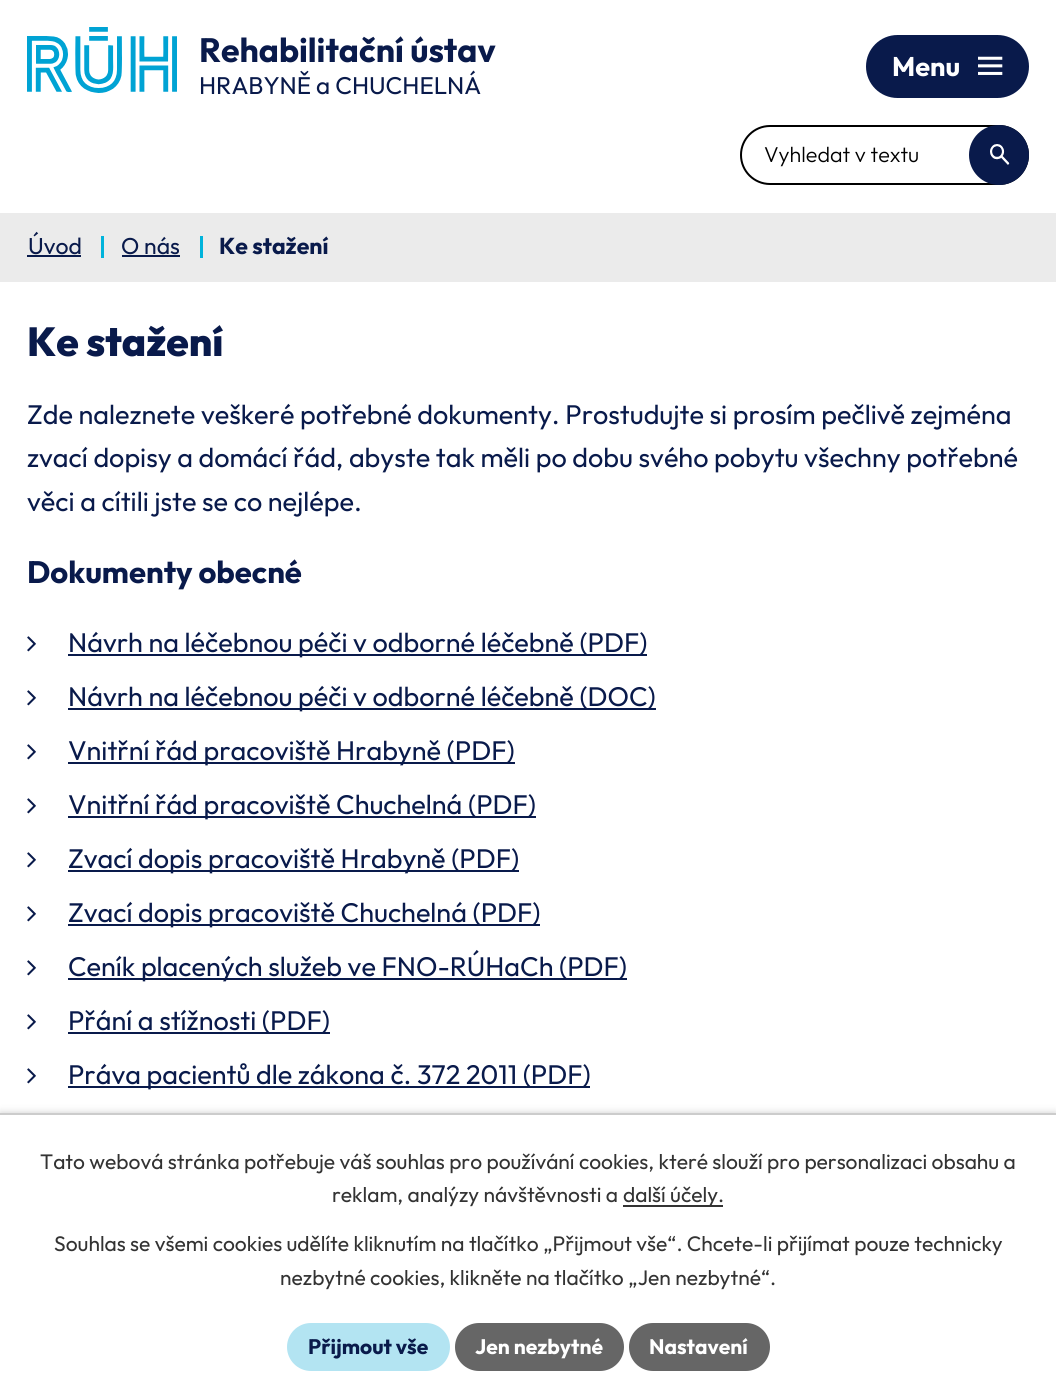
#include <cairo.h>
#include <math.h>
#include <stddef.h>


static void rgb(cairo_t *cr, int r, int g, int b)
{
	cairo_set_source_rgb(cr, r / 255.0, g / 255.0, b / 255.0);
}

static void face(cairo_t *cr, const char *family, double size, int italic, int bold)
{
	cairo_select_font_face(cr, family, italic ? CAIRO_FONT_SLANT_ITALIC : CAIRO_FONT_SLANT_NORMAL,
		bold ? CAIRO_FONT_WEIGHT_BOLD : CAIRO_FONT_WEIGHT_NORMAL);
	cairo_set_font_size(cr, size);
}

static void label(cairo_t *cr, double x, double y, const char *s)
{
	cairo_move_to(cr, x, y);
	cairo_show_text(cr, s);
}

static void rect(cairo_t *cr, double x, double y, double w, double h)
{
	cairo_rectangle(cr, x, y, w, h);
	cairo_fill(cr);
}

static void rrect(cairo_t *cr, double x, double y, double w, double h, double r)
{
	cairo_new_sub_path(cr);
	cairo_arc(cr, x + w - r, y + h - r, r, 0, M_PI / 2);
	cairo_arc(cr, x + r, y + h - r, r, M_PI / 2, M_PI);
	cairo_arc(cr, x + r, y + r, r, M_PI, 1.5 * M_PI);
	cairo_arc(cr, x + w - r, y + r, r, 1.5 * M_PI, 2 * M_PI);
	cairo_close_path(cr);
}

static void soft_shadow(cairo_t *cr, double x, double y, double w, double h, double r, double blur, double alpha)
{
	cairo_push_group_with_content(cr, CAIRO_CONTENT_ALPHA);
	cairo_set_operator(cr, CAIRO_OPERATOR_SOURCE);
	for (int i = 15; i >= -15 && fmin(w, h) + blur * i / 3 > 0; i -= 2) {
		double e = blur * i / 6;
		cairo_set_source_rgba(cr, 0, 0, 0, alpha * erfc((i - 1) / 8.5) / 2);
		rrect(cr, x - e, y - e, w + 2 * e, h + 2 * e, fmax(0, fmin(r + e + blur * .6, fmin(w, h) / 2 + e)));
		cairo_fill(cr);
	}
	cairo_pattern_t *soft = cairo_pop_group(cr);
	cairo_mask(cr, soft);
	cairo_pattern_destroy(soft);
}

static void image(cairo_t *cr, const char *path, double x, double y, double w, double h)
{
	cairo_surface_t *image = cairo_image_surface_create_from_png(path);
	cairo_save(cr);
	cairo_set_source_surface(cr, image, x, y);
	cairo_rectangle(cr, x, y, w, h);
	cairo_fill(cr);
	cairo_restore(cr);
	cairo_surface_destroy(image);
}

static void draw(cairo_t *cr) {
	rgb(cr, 255, 255, 255);
	cairo_paint(cr);
	image(cr, "image0.png", 27, 27, 150, 66);
	face(cr, "Outfit", 33.75, 0, 1);
	rgb(cr, 9, 26, 75);
	label(cr, 199, 62, "Rehabilitační ústav");
	face(cr, "Outfit", 24.25, 0, 0);
	label(cr, 199, 94, "HRABYNĚ a CHUCHELNÁ");
	rrect(cr, 741, 126, 287, 58, 29);
	rgb(cr, 0, 0, 0);
	cairo_stroke(cr);
	face(cr, "Outfit Light", 21.5, 0, 0);
	label(cr, 764, 162, "Vyhledat v textu");
	rgb(cr, 9, 26, 75);
	cairo_new_path(cr);
	cairo_arc(cr, 999, 155, 30, 0, 2 * M_PI);
	cairo_fill(cr);
	image(cr, "image1.png", 990, 144, 20, 21);
	rrect(cr, 866, 35, 163, 63, 31.5);
	cairo_fill(cr);
	face(cr, "Outfit", 27, 0, 1);
	rgb(cr, 255, 255, 255);
	label(cr, 892, 76, "Menu");
	image(cr, "image2.png", 978, 56, 25, 19);
	rgb(cr, 235, 235, 235);
	rect(cr, 0, 213, 1056, 69);
	face(cr, "Outfit", 23, 0, 0);
	rgb(cr, 9, 26, 75);
	label(cr, 28, 254, "Úvod");
	rect(cr, 27, 255, 54, 2);
	rgb(cr, 0, 179, 219);
	rect(cr, 101, 236, 3, 22);
	rgb(cr, 9, 26, 75);
	label(cr, 121, 254, "O nás");
	rect(cr, 122, 255, 58, 2);
	rgb(cr, 0, 179, 219);
	rect(cr, 200, 236, 3, 22);
	face(cr, "Outfit", 23, 0, 1);
	rgb(cr, 9, 26, 75);
	label(cr, 219, 254, "Ke stažení");
	face(cr, "Outfit ExtraBold", 40.5, 0, 0);
	label(cr, 27, 356, "Ke stažení");
	face(cr, "Outfit", 27, 0, 0);
	label(cr, 27, 424, "Zde naleznete veškeré potřebné dokumenty. Prostudujte si prosím pečlivě zejména");
	label(cr, 27, 467, "zvací dopisy a domácí řád, abyste tak měli po dobu svého pobytu všechny potřebné");
	label(cr, 27, 511, "věci a cítili jste se co nejlépe.");
	face(cr, "Outfit", 31, 0, 1);
	label(cr, 27, 583, "Dokumenty obecné");
	image(cr, "image3.png", 27, 636, 9, 16);
	rect(cr, 68, 654, 579, 2);
	face(cr, "Outfit", 27, 0, 0);
	label(cr, 68, 652, "Návrh na léčebnou péči v odborné léčebně (PDF)");
	image(cr, "image3.png", 27, 690, 9, 16);
	rect(cr, 68, 708, 588, 2);
	label(cr, 68, 706, "Návrh na léčebnou péči v odborné léčebně (DOC)");
	image(cr, "image3.png", 27, 744, 9, 16);
	rect(cr, 68, 762, 447, 2);
	label(cr, 68, 760, "Vnitřní řád pracoviště Hrabyně (PDF)");
	image(cr, "image3.png", 27, 798, 9, 16);
	rect(cr, 68, 816, 468, 2);
	label(cr, 68, 814, "Vnitřní řád pracoviště Chuchelná (PDF)");
	image(cr, "image3.png", 27, 852, 9, 16);
	rect(cr, 68, 870, 451, 2);
	label(cr, 68, 868, "Zvací dopis pracoviště Hrabyně (PDF)");
	image(cr, "image3.png", 27, 906, 9, 16);
	rect(cr, 68, 924, 472, 2);
	label(cr, 68, 922, "Zvací dopis pracoviště Chuchelná (PDF)");
	image(cr, "image3.png", 27, 960, 9, 16);
	rect(cr, 68, 978, 559, 2);
	label(cr, 68, 976, "Ceník placených služeb ve FNO-RÚHaCh (PDF)");
	image(cr, "image3.png", 27, 1014, 9, 16);
	rect(cr, 68, 1032, 262, 2);
	label(cr, 68, 1030, "Přání a stížnosti (PDF)");
	image(cr, "image3.png", 27, 1068, 9, 16);
	rect(cr, 68, 1086, 522, 2);
	label(cr, 68, 1084, "Práva pacientů dle zákona č. 372 2011 (PDF)");
	rgb(cr, 0, 0, 0);
	soft_shadow(cr, 0, 1113, 1056, 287, 0, 4, 0.2);
	rgb(cr, 255, 255, 255);
	rect(cr, 0, 1115, 1056, 284);
	rgb(cr, 204, 204, 204);
	rect(cr, 0, 1113, 1056, 2);
	face(cr, "Outfit", 21, 0, 0);
	rgb(cr, 51, 51, 51);
	label(cr, 40, 1169, "Tato webová stránka potřebuje váš souhlas pro používání cookies, které slouží pro personalizaci obsahu a");
	label(cr, 332, 1202, "reklam, analýzy návštěvnosti a");
	rect(cr, 623, 1205, 100, 2);
	label(cr, 623, 1202, "další účely.");
	label(cr, 54, 1251, "Souhlas se všemi cookies udělíte kliknutím na tlačítko „Přijmout vše“. Chcete-li přijímat pouze technicky");
	label(cr, 280, 1285, "nezbytné cookies, klikněte na tlačítko „Jen nezbytné“.");
	rgb(cr, 179, 228, 242);
	rrect(cr, 287, 1323, 163, 48, 24);
	cairo_fill(cr);
	face(cr, "Outfit", 21, 0, 1);
	rgb(cr, 9, 26, 75);
	label(cr, 308, 1354, "Přijmout vše");
	rgb(cr, 102, 102, 102);
	rrect(cr, 455, 1323, 169, 48, 24);
	cairo_fill(cr);
	rgb(cr, 255, 255, 255);
	label(cr, 475, 1354, "Jen nezbytné");
	rgb(cr, 102, 102, 102);
	rrect(cr, 629, 1323, 141, 48, 24);
	cairo_fill(cr);
	rgb(cr, 255, 255, 255);
	label(cr, 649, 1354, "Nastavení");
}

int main(void) {
	cairo_surface_t *surface = cairo_image_surface_create(CAIRO_FORMAT_RGB24, 1056, 1399);
	cairo_t *cr = cairo_create(surface);
	cairo_font_options_t *options = cairo_font_options_create();
	cairo_font_options_set_hint_metrics(options, CAIRO_HINT_METRICS_OFF);
	cairo_font_options_set_hint_style(options, CAIRO_HINT_STYLE_NONE);
	cairo_set_font_options(cr, options);
	cairo_set_miter_limit(cr, 4);
	draw(cr);
	cairo_surface_write_to_png(surface, "render.png");
	cairo_font_options_destroy(options);
	cairo_destroy(cr);
	cairo_surface_destroy(surface);
	return 0;
}
